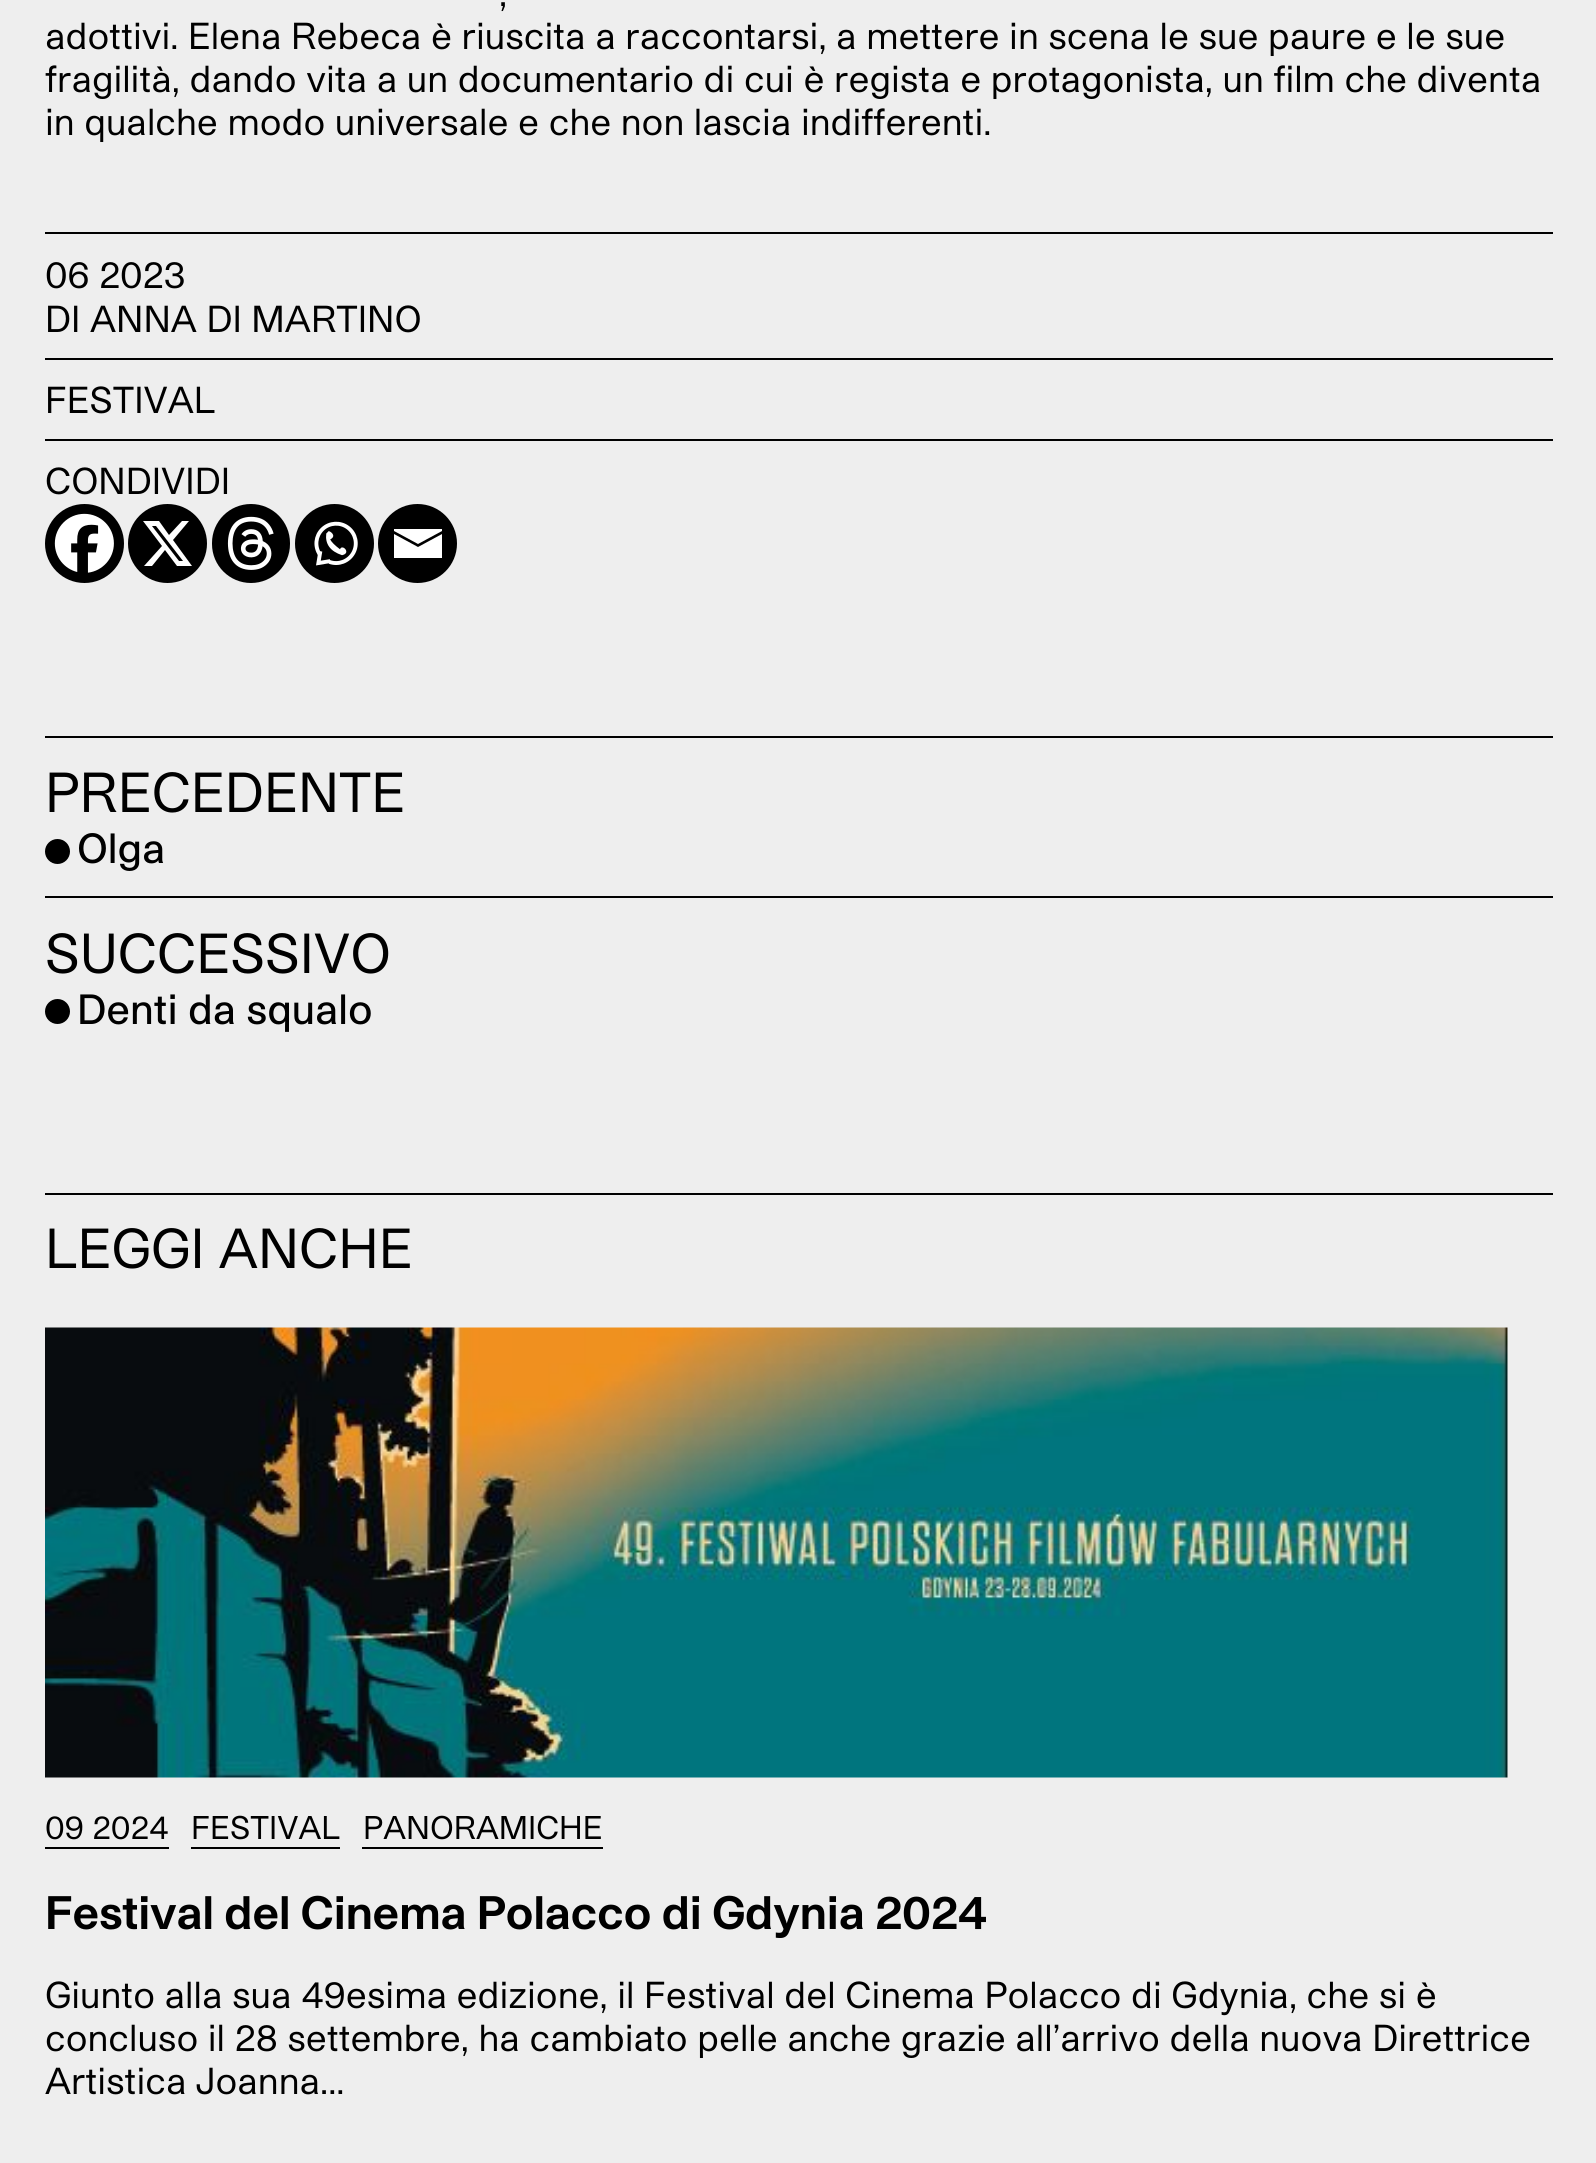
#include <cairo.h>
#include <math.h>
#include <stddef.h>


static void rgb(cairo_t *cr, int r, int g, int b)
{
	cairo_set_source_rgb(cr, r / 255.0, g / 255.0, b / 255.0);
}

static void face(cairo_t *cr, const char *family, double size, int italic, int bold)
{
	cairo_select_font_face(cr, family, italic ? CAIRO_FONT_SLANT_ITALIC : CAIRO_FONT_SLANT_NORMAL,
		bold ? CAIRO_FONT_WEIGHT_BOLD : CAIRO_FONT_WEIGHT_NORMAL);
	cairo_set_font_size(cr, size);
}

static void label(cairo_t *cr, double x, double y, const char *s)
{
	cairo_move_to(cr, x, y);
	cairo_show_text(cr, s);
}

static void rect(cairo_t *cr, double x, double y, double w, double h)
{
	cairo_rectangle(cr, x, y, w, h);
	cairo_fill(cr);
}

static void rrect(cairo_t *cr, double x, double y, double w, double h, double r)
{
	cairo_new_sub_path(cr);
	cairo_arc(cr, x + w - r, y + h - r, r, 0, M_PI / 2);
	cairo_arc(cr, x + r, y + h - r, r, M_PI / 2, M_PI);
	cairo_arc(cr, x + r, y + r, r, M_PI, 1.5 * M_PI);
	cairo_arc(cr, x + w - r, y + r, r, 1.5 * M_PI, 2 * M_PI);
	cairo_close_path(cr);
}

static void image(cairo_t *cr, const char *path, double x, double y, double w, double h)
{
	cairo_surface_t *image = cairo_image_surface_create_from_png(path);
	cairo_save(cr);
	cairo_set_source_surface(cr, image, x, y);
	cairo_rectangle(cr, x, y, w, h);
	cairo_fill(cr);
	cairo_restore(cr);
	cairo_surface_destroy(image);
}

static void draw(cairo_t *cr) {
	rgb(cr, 238, 238, 238);
	cairo_paint(cr);
	face(cr, "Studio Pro", 36, 0, 0);
	rgb(cr, 0, 0, 0);
	label(cr, 499, 6, ",");
	label(cr, 45, 49, "adottivi. Elena Rebeca è riuscita a raccontarsi, a mettere in scena le sue paure e le sue");
	label(cr, 45, 92, "fragilità, dando vita a un documentario di cui è regista e protagonista, un film che diventa");
	label(cr, 45, 135, "in qualche modo universale e che non lascia indifferenti.");
	rect(cr, 45, 232, 1508, 2);
	label(cr, 45, 288, "06 2023");
	label(cr, 45, 332, "DI ANNA DI MARTINO");
	rect(cr, 45, 358, 1508, 2);
	label(cr, 45, 413, "FESTIVAL");
	rect(cr, 45, 439, 1508, 2);
	label(cr, 45, 494, "CONDIVIDI");
	cairo_new_path(cr);
	cairo_arc(cr, 84.5, 543.5, 39.5, 0, 2 * M_PI);
	cairo_fill(cr);
	image(cr, "image0.png", 54, 513, 60, 60);
	cairo_arc(cr, 167.5, 543.5, 39.5, 0, 2 * M_PI);
	cairo_fill(cr);
	rgb(cr, 255, 255, 255);
	cairo_new_path(cr);
	cairo_move_to(cr, 182, 521);
	cairo_line_to(cr, 189, 521);
	cairo_line_to(cr, 173, 540);
	cairo_line_to(cr, 192, 566);
	cairo_line_to(cr, 177, 566);
	cairo_line_to(cr, 165, 550);
	cairo_line_to(cr, 152, 566);
	cairo_line_to(cr, 144, 566);
	cairo_line_to(cr, 162, 546);
	cairo_line_to(cr, 143, 521);
	cairo_line_to(cr, 159, 521);
	cairo_line_to(cr, 169, 535);
	cairo_close_path(cr);
	cairo_move_to(cr, 179, 561);
	cairo_line_to(cr, 183, 561);
	cairo_line_to(cr, 156, 526);
	cairo_line_to(cr, 152, 526);
	cairo_close_path(cr);
	cairo_fill(cr);
	rgb(cr, 0, 0, 0);
	rrect(cr, 212, 504, 78, 79, 39);
	cairo_fill(cr);
	image(cr, "image1.png", 227, 516, 47, 54);
	cairo_arc(cr, 334.5, 543.5, 39.5, 0, 2 * M_PI);
	cairo_fill(cr);
	image(cr, "image2.png", 314, 521, 44, 45);
	cairo_arc(cr, 417.5, 543.5, 39.5, 0, 2 * M_PI);
	cairo_fill(cr);
	rgb(cr, 255, 255, 255);
	cairo_new_path(cr);
	cairo_move_to(cr, 392, 529);
	cairo_line_to(cr, 442, 529);
	cairo_line_to(cr, 442, 531);
	cairo_line_to(cr, 418, 544);
	cairo_line_to(cr, 394, 531);
	cairo_line_to(cr, 394, 529);
	cairo_move_to(cr, 394, 534);
	cairo_line_to(cr, 418, 547);
	cairo_line_to(cr, 442, 534);
	cairo_line_to(cr, 442, 558);
	cairo_line_to(cr, 394, 558);
	cairo_line_to(cr, 394, 534);
	cairo_fill(cr);
	rgb(cr, 0, 0, 0);
	rect(cr, 45, 736, 1508, 2);
	face(cr, "Studio Pro", 54, 0, 0);
	label(cr, 45, 812, "PRECEDENTE");
	cairo_new_path(cr);
	cairo_arc(cr, 57.5, 851.5, 12.5, 0, 2 * M_PI);
	cairo_fill(cr);
	face(cr, "Studio Pro Medium", 40.5, 0, 0);
	label(cr, 77, 863, "Olga");
	rect(cr, 45, 896, 1508, 2);
	face(cr, "Studio Pro", 54, 0, 0);
	label(cr, 45, 973, "SUCCESSIVO");
	cairo_new_path(cr);
	cairo_arc(cr, 57.5, 1011.5, 12.5, 0, 2 * M_PI);
	cairo_fill(cr);
	face(cr, "Studio Pro Medium", 40.5, 0, 0);
	label(cr, 77, 1024, "Denti da squalo");
	rect(cr, 45, 1193, 1508, 2);
	face(cr, "Studio Pro", 54, 0, 0);
	label(cr, 45, 1268, "LEGGI ANCHE");
	image(cr, "image3.png", 45, 1327, 1463, 451);
	rect(cr, 45, 1847, 124, 2);
	face(cr, "Studio Pro", 31.5, 0, 0);
	label(cr, 45, 1839, "09 2024");
	rect(cr, 191, 1847, 149, 2);
	label(cr, 191, 1839, "FESTIVAL");
	rect(cr, 362, 1847, 241, 2);
	label(cr, 363, 1839, "PANORAMICHE");
	face(cr, "Studio Pro", 45, 0, 1);
	label(cr, 45, 1929, "Festival del Cinema Polacco di Gdynia 2024");
	face(cr, "Studio Pro", 36, 0, 0);
	label(cr, 45, 2008, "Giunto alla sua 49esima edizione, il Festival del Cinema Polacco di Gdynia, che si è");
	label(cr, 45, 2051, "concluso il 28 settembre, ha cambiato pelle anche grazie all’arrivo della nuova Direttrice");
	label(cr, 45, 2094, "Artistica Joanna...");
}

int main(void) {
	cairo_surface_t *surface = cairo_image_surface_create(CAIRO_FORMAT_RGB24, 1596, 2163);
	cairo_t *cr = cairo_create(surface);
	cairo_font_options_t *options = cairo_font_options_create();
	cairo_font_options_set_hint_metrics(options, CAIRO_HINT_METRICS_OFF);
	cairo_font_options_set_hint_style(options, CAIRO_HINT_STYLE_NONE);
	cairo_set_font_options(cr, options);
	cairo_set_miter_limit(cr, 4);
	draw(cr);
	cairo_surface_write_to_png(surface, "render.png");
	cairo_font_options_destroy(options);
	cairo_destroy(cr);
	cairo_surface_destroy(surface);
	return 0;
}
